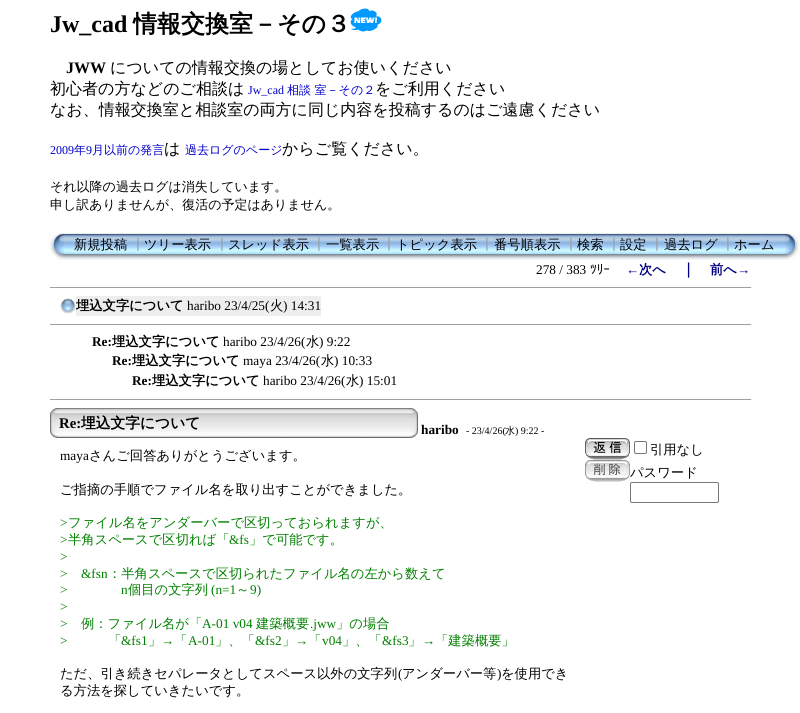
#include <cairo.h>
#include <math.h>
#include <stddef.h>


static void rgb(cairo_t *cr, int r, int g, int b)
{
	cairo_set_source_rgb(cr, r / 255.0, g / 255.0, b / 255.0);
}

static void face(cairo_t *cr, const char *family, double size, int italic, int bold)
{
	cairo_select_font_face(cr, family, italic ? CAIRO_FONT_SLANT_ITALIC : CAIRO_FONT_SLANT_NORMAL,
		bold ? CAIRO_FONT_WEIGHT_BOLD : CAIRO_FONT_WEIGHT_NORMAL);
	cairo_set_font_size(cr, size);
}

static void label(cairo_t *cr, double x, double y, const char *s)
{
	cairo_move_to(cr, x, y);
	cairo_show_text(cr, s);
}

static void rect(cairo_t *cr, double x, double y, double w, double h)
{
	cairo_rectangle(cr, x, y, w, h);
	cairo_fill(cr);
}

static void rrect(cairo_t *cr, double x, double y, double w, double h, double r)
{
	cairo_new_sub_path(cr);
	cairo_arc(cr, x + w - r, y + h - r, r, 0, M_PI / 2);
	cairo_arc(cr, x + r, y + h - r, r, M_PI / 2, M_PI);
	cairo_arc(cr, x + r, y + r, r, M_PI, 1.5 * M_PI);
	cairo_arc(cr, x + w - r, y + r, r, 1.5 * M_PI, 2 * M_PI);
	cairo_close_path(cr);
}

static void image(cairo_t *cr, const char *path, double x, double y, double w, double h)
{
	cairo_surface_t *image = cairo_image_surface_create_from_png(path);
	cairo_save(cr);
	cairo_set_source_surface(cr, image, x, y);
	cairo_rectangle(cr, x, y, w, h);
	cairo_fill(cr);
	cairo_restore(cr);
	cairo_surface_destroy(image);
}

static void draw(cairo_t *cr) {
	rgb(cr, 255, 255, 255);
	cairo_paint(cr);
	face(cr, "Liberation Serif", 24, 0, 1);
	rgb(cr, 0, 0, 0);
	label(cr, 50, 32, "Jw_cad");
	face(cr, "WenQuanYi Zen Hei", 24, 0, 1);
	label(cr, 133, 32, "情報交換室－その３");
	image(cr, "image0.png", 350, 8, 32, 24);
	face(cr, "Liberation Serif", 16, 0, 1);
	label(cr, 66, 73, "JWW");
	face(cr, "WenQuanYi Zen Hei Medium", 16, 0, 0);
	label(cr, 110, 73, "についての情報交換の場としてお使いください");
	label(cr, 50, 94, "初心者の方などのご相談は");
	face(cr, "Liberation Serif", 12, 0, 0);
	rgb(cr, 0, 0, 204);
	label(cr, 248, 94, "Jw_cad");
	face(cr, "WenQuanYi Zen Hei Medium", 12, 0, 0);
	label(cr, 287, 94, "相談 室－その２");
	face(cr, "WenQuanYi Zen Hei Medium", 16, 0, 0);
	rgb(cr, 0, 0, 0);
	label(cr, 375, 94, "をご利用ください");
	label(cr, 50, 115, "なお、情報交換室と相談室の両方に同じ内容を投稿するのはご遠慮ください");
	face(cr, "Liberation Serif", 12, 0, 0);
	rgb(cr, 0, 0, 204);
	label(cr, 50, 154, "2009");
	face(cr, "WenQuanYi Zen Hei Medium", 12, 0, 0);
	label(cr, 74, 154, "年");
	face(cr, "Liberation Serif", 12, 0, 0);
	label(cr, 86, 154, "9");
	face(cr, "WenQuanYi Zen Hei Medium", 12, 0, 0);
	label(cr, 92, 154, "月以前の発言");
	face(cr, "WenQuanYi Zen Hei Medium", 16, 0, 0);
	rgb(cr, 0, 0, 0);
	label(cr, 164, 154, "は");
	face(cr, "WenQuanYi Zen Hei Medium", 12, 0, 0);
	rgb(cr, 0, 0, 204);
	label(cr, 185, 154, "過去ログのページ");
	face(cr, "WenQuanYi Zen Hei Medium", 16, 0, 0);
	rgb(cr, 0, 0, 0);
	label(cr, 282, 154, "からご覧ください。");
	face(cr, "WenQuanYi Zen Hei Medium", 13, 0, 0);
	label(cr, 50, 191, "それ以降の過去ログは消失しています。");
	label(cr, 50, 209, "申し訳ありませんが、復活の予定はありません。");
	image(cr, "image1.png", 50, 233, 14, 27);
	image(cr, "image2.png", 64, 233, 721, 27);
	face(cr, "WenQuanYi Zen Hei Medium", 13.3, 0, 0);
	label(cr, 74, 249, "新規投稿");
	rgb(cr, 153, 153, 153);
	label(cr, 131, 249, "┃");
	rgb(cr, 0, 0, 0);
	label(cr, 144, 249, "ツリー表示");
	rgb(cr, 153, 153, 153);
	label(cr, 215, 249, "┃");
	rgb(cr, 0, 0, 0);
	label(cr, 228, 249, "スレッド表示");
	rgb(cr, 153, 153, 153);
	label(cr, 312, 249, "┃");
	rgb(cr, 0, 0, 0);
	label(cr, 326, 249, "一覧表示");
	rgb(cr, 153, 153, 153);
	label(cr, 382, 249, "┃");
	rgb(cr, 0, 0, 0);
	label(cr, 396, 249, "トピック表示");
	rgb(cr, 153, 153, 153);
	label(cr, 480, 249, "┃");
	rgb(cr, 0, 0, 0);
	label(cr, 494, 249, "番号順表示");
	rgb(cr, 153, 153, 153);
	label(cr, 564, 249, "┃");
	rgb(cr, 0, 0, 0);
	label(cr, 577, 249, "検索");
	rgb(cr, 153, 153, 153);
	label(cr, 607, 249, "┃");
	rgb(cr, 0, 0, 0);
	label(cr, 620, 249, "設定");
	rgb(cr, 153, 153, 153);
	label(cr, 650, 249, "┃");
	rgb(cr, 0, 0, 0);
	label(cr, 664, 249, "過去ログ");
	rgb(cr, 153, 153, 153);
	label(cr, 721, 249, "┃");
	rgb(cr, 0, 0, 0);
	label(cr, 734, 249, "ホーム");
	image(cr, "image3.png", 785, 233, 14, 27);
	face(cr, "Liberation Serif", 13.3, 0, 0);
	label(cr, 536, 274, "278 / 383");
	face(cr, "IPAPGothic", 13.3, 0, 0);
	label(cr, 590, 274, "ﾂﾘｰ");
	face(cr, "Liberation Serif", 13.3, 0, 1);
	rgb(cr, 0, 0, 128);
	label(cr, 626, 274, "←");
	face(cr, "WenQuanYi Zen Hei", 13.3, 0, 1);
	label(cr, 639, 274, "次へ");
	face(cr, "WenQuanYi Zen Hei", 14.75, 0, 1);
	label(cr, 681, 274, "｜");
	face(cr, "WenQuanYi Zen Hei", 13.3, 0, 1);
	label(cr, 710, 274, "前へ");
	face(cr, "Liberation Serif", 13.3, 0, 1);
	label(cr, 737, 274, "→");
	rgb(cr, 159, 159, 159);
	rect(cr, 50, 287, 702, 1);
	rgb(cr, 238, 238, 238);
	rect(cr, 751, 287, 1, 1);
	image(cr, "image4.png", 60, 298, 16, 16);
	rect(cr, 76, 296, 245, 20);
	face(cr, "WenQuanYi Zen Hei", 13.3, 0, 1);
	rgb(cr, 0, 0, 0);
	label(cr, 76, 310, "埋込文字について");
	face(cr, "Liberation Serif", 13.3, 0, 0);
	label(cr, 187, 310, "haribo 23/4/25(");
	face(cr, "WenQuanYi Zen Hei Medium", 13.3, 0, 0);
	label(cr, 270, 310, "火");
	face(cr, "Liberation Serif", 13.3, 0, 0);
	label(cr, 283, 310, ") 14:31");
	rgb(cr, 159, 159, 159);
	rect(cr, 50, 324, 702, 1);
	rgb(cr, 238, 238, 238);
	rect(cr, 751, 324, 1, 1);
	face(cr, "Liberation Serif", 13.3, 0, 1);
	rgb(cr, 0, 0, 0);
	label(cr, 92, 346, "Re:");
	face(cr, "WenQuanYi Zen Hei", 13.3, 0, 1);
	label(cr, 112, 346, "埋込文字について");
	face(cr, "Liberation Serif", 13.3, 0, 0);
	label(cr, 223, 346, "haribo 23/4/26(");
	face(cr, "WenQuanYi Zen Hei Medium", 13.3, 0, 0);
	label(cr, 306, 346, "水");
	face(cr, "Liberation Serif", 13.3, 0, 0);
	label(cr, 319, 346, ") 9:22");
	face(cr, "Liberation Serif", 13.3, 0, 1);
	label(cr, 112, 365, "Re:");
	face(cr, "WenQuanYi Zen Hei", 13.3, 0, 1);
	label(cr, 132, 365, "埋込文字について");
	face(cr, "Liberation Serif", 13.3, 0, 0);
	label(cr, 243, 365, "maya 23/4/26(");
	face(cr, "WenQuanYi Zen Hei Medium", 13.3, 0, 0);
	label(cr, 321, 365, "水");
	face(cr, "Liberation Serif", 13.3, 0, 0);
	label(cr, 334, 365, ") 10:33");
	face(cr, "Liberation Serif", 13.3, 0, 1);
	label(cr, 132, 385, "Re:");
	face(cr, "WenQuanYi Zen Hei", 13.3, 0, 1);
	label(cr, 152, 385, "埋込文字について");
	face(cr, "Liberation Serif", 13.3, 0, 0);
	label(cr, 263, 385, "haribo 23/4/26(");
	face(cr, "WenQuanYi Zen Hei Medium", 13.3, 0, 0);
	label(cr, 346, 385, "水");
	face(cr, "Liberation Serif", 13.3, 0, 0);
	label(cr, 359, 385, ") 15:01");
	rgb(cr, 159, 159, 159);
	rect(cr, 50, 399, 702, 1);
	rgb(cr, 238, 238, 238);
	rect(cr, 751, 399, 1, 1);
	image(cr, "image5.png", 50, 408, 9, 30);
	image(cr, "image6.png", 59, 408, 350, 30);
	face(cr, "Liberation Serif", 14.75, 0, 1);
	rgb(cr, 0, 0, 0);
	label(cr, 59, 428, "Re:");
	face(cr, "WenQuanYi Zen Hei", 14.75, 0, 1);
	label(cr, 81, 428, "埋込文字について");
	image(cr, "image7.png", 409, 408, 9, 30);
	face(cr, "Liberation Serif", 13.3, 0, 1);
	label(cr, 421, 434, "haribo");
	face(cr, "Liberation Serif", 10, 0, 0);
	label(cr, 466, 434, "- 23/4/26(");
	face(cr, "WenQuanYi Zen Hei Medium", 10, 0, 0);
	label(cr, 505, 434, "水");
	face(cr, "Liberation Serif", 10, 0, 0);
	label(cr, 515, 434, ") 9:22 -");
	face(cr, "Liberation Serif", 13.3, 0, 0);
	label(cr, 60, 460, "maya");
	face(cr, "WenQuanYi Zen Hei Medium", 13.3, 0, 0);
	label(cr, 89, 460, "さんご回答ありがとうございます。");
	label(cr, 60, 494, "ご指摘の手順でファイル名を取り出すことができました。");
	face(cr, "Liberation Serif", 13.3, 0, 0);
	rgb(cr, 0, 128, 0);
	label(cr, 60, 527, ">");
	face(cr, "WenQuanYi Zen Hei Medium", 13.3, 0, 0);
	label(cr, 68, 527, "ファイル名をアンダーバーで区切っておられますが、");
	face(cr, "Liberation Serif", 13.3, 0, 0);
	label(cr, 60, 544, ">");
	face(cr, "WenQuanYi Zen Hei Medium", 13.3, 0, 0);
	label(cr, 68, 544, "半角スペースで区切れば「");
	face(cr, "Liberation Serif", 13.3, 0, 0);
	label(cr, 229, 544, "&fs");
	face(cr, "WenQuanYi Zen Hei Medium", 13.3, 0, 0);
	label(cr, 249, 544, "」で可能です。");
	face(cr, "Liberation Serif", 13.3, 0, 0);
	label(cr, 60, 561, ">");
	label(cr, 60, 578, ">");
	label(cr, 81, 578, "&fsn");
	face(cr, "WenQuanYi Zen Hei Medium", 13.3, 0, 0);
	label(cr, 108, 578, "：半角スペースで区切られたファイル名の左から数えて");
	face(cr, "Liberation Serif", 13.3, 0, 0);
	label(cr, 60, 594, ">");
	label(cr, 121, 594, "n");
	face(cr, "WenQuanYi Zen Hei Medium", 13.3, 0, 0);
	label(cr, 128, 594, "個目の文字列");
	face(cr, "Liberation Serif", 13.3, 0, 0);
	label(cr, 211, 594, "(n=1");
	face(cr, "WenQuanYi Zen Hei Medium", 13.3, 0, 0);
	label(cr, 236, 594, "～");
	face(cr, "Liberation Serif", 13.3, 0, 0);
	label(cr, 250, 594, "9)");
	label(cr, 60, 611, ">");
	label(cr, 60, 628, ">");
	face(cr, "WenQuanYi Zen Hei Medium", 13.3, 0, 0);
	label(cr, 81, 628, "例：ファイル名が「");
	face(cr, "Liberation Serif", 13.3, 0, 0);
	label(cr, 202, 628, "A-01 v04");
	face(cr, "WenQuanYi Zen Hei Medium", 13.3, 0, 0);
	label(cr, 256, 628, "建築概要");
	face(cr, "Liberation Serif", 13.3, 0, 0);
	label(cr, 310, 628, ".jww");
	face(cr, "WenQuanYi Zen Hei Medium", 13.3, 0, 0);
	label(cr, 336, 628, "」の場合");
	face(cr, "Liberation Serif", 13.3, 0, 0);
	label(cr, 60, 645, ">");
	face(cr, "WenQuanYi Zen Hei Medium", 13.3, 0, 0);
	label(cr, 108, 645, "「");
	face(cr, "Liberation Serif", 13.3, 0, 0);
	label(cr, 121, 645, "&fs1");
	face(cr, "WenQuanYi Zen Hei Medium", 13.3, 0, 0);
	label(cr, 148, 645, "」");
	face(cr, "Liberation Serif", 13.3, 0, 0);
	label(cr, 161, 645, "→");
	face(cr, "WenQuanYi Zen Hei Medium", 13.3, 0, 0);
	label(cr, 174, 645, "「");
	face(cr, "Liberation Serif", 13.3, 0, 0);
	label(cr, 188, 645, "A-01");
	face(cr, "WenQuanYi Zen Hei Medium", 13.3, 0, 0);
	label(cr, 215, 645, "」、「");
	face(cr, "Liberation Serif", 13.3, 0, 0);
	label(cr, 255, 645, "&fs2");
	face(cr, "WenQuanYi Zen Hei Medium", 13.3, 0, 0);
	label(cr, 282, 645, "」");
	face(cr, "Liberation Serif", 13.3, 0, 0);
	label(cr, 295, 645, "→");
	face(cr, "WenQuanYi Zen Hei Medium", 13.3, 0, 0);
	label(cr, 308, 645, "「");
	face(cr, "Liberation Serif", 13.3, 0, 0);
	label(cr, 322, 645, "v04");
	face(cr, "WenQuanYi Zen Hei Medium", 13.3, 0, 0);
	label(cr, 342, 645, "」、「");
	face(cr, "Liberation Serif", 13.3, 0, 0);
	label(cr, 382, 645, "&fs3");
	face(cr, "WenQuanYi Zen Hei Medium", 13.3, 0, 0);
	label(cr, 408, 645, "」");
	face(cr, "Liberation Serif", 13.3, 0, 0);
	label(cr, 422, 645, "→");
	face(cr, "WenQuanYi Zen Hei Medium", 13.3, 0, 0);
	label(cr, 435, 645, "「建築概要」");
	rgb(cr, 0, 0, 0);
	label(cr, 60, 678, "ただ、引き続きセパレータとしてスペース以外の文字列");
	face(cr, "Liberation Serif", 13.3, 0, 0);
	label(cr, 398, 678, "(");
	face(cr, "WenQuanYi Zen Hei Medium", 13.3, 0, 0);
	label(cr, 402, 678, "アンダーバー等");
	face(cr, "Liberation Serif", 13.3, 0, 0);
	label(cr, 497, 678, ")");
	face(cr, "WenQuanYi Zen Hei Medium", 13.3, 0, 0);
	label(cr, 501, 678, "を使用でき");
	label(cr, 60, 695, "る方法を探していきたいです。");
	image(cr, "image8.png", 585, 438, 45, 22);
	rrect(cr, 634.5, 441.5, 12, 12, 1.5);
	rgb(cr, 118, 118, 118);
	cairo_set_line_width(cr, 1);
	cairo_stroke(cr);
	rgb(cr, 0, 0, 0);
	label(cr, 650, 454, "引用なし");
	image(cr, "image9.png", 585, 460, 45, 22);
	label(cr, 630, 477, "パスワード");
	rrect(cr, 630.5, 482.5, 88, 20, 1.5);
	rgb(cr, 118, 118, 118);
	cairo_stroke(cr);
}

int main(void) {
	cairo_surface_t *surface = cairo_image_surface_create(CAIRO_FORMAT_RGB24, 800, 713);
	cairo_t *cr = cairo_create(surface);
	cairo_font_options_t *options = cairo_font_options_create();
	cairo_font_options_set_hint_metrics(options, CAIRO_HINT_METRICS_OFF);
	cairo_font_options_set_hint_style(options, CAIRO_HINT_STYLE_NONE);
	cairo_set_font_options(cr, options);
	cairo_set_miter_limit(cr, 4);
	draw(cr);
	cairo_surface_write_to_png(surface, "render.png");
	cairo_font_options_destroy(options);
	cairo_destroy(cr);
	cairo_surface_destroy(surface);
	return 0;
}
